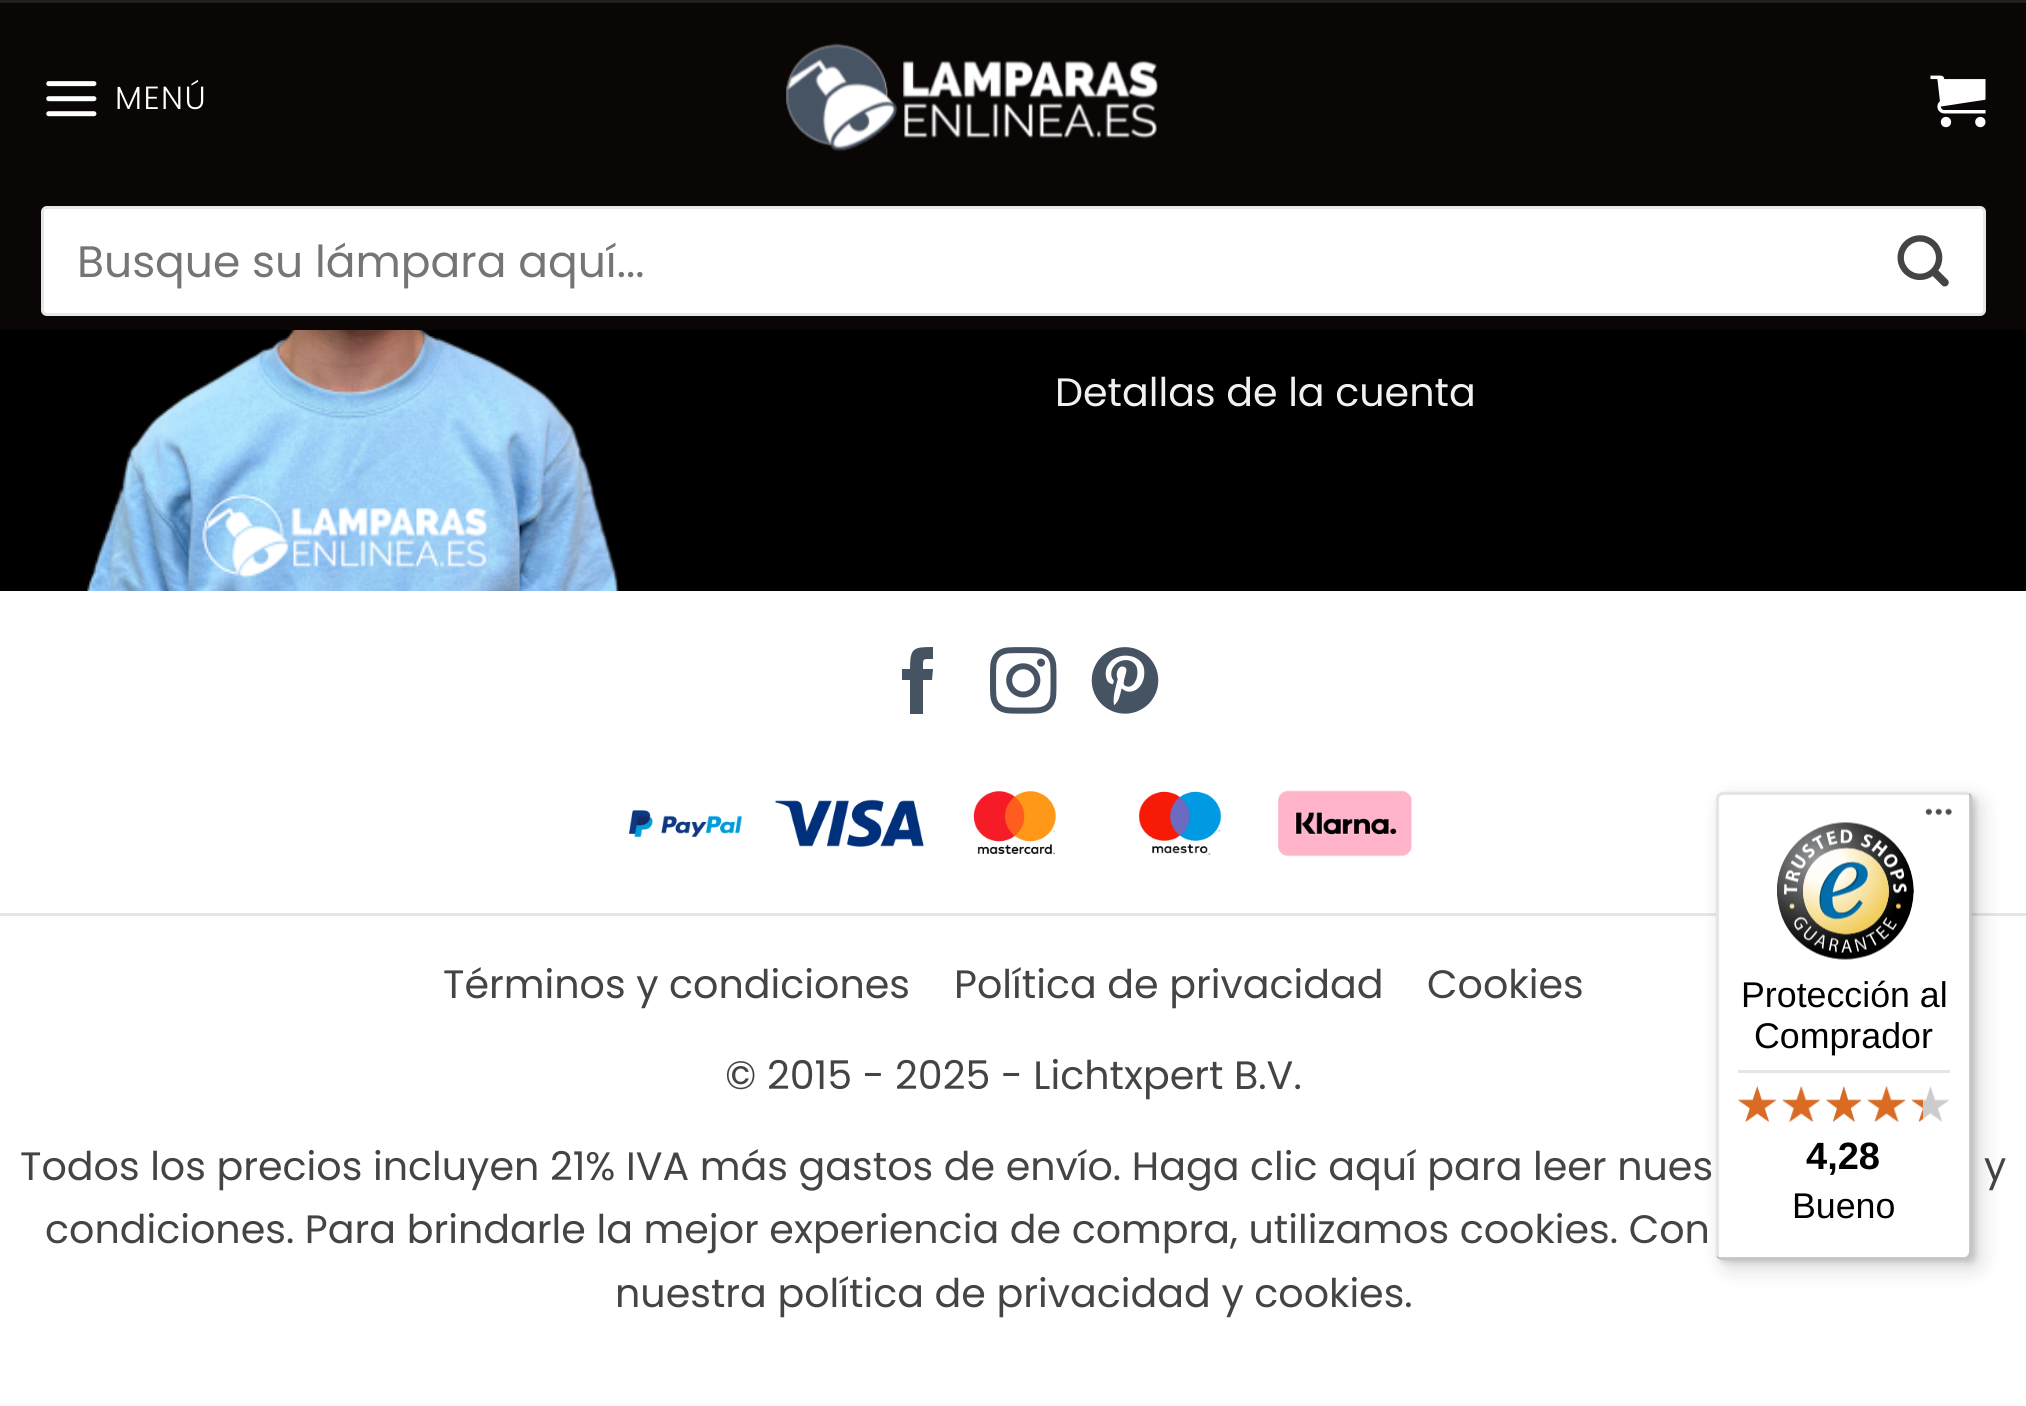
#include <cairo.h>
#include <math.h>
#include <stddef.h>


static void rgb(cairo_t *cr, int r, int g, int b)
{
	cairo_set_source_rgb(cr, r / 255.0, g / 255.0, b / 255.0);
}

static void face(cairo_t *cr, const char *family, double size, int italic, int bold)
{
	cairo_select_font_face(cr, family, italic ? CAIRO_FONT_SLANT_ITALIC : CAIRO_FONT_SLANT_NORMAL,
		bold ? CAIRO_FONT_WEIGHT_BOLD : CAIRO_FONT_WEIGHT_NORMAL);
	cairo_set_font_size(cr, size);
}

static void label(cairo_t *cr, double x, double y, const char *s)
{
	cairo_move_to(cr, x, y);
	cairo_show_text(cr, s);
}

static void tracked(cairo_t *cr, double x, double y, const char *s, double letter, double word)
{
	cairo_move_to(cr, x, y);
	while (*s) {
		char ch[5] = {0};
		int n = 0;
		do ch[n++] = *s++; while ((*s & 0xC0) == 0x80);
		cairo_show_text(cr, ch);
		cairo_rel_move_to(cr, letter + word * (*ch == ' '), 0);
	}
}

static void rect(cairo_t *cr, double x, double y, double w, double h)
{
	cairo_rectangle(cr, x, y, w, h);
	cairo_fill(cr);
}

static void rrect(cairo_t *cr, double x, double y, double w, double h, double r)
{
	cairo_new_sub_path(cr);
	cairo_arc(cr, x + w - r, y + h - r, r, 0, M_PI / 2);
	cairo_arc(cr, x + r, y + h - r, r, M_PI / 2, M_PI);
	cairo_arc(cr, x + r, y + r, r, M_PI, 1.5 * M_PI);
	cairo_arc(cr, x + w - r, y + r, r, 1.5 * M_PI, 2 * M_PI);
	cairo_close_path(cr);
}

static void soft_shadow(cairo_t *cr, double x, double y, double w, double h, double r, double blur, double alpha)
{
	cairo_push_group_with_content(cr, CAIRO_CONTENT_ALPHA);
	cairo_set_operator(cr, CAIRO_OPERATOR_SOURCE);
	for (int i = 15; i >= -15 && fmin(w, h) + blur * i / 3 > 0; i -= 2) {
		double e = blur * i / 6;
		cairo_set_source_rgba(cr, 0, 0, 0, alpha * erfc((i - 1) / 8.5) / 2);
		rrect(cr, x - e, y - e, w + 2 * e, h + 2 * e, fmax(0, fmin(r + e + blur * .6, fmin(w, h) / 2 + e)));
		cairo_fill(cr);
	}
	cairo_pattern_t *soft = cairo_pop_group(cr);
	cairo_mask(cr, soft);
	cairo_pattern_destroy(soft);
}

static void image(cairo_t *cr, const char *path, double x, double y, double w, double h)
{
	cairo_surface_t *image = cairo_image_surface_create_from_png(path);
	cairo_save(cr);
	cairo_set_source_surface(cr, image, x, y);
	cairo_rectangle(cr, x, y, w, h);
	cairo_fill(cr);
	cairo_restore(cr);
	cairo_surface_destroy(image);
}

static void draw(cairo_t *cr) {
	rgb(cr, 255, 255, 255);
	cairo_paint(cr);
	rgb(cr, 0, 0, 0);
	rect(cr, 0, 330, 2026, 261);
	image(cr, "image4.png", 87, 330, 532, 261);
	rgb(cr, 0, 0, 0);
	soft_shadow(cr, 3, 3, 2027, 330, 0, 14, 0.15);
	rgb(cr, 10, 6, 6);
	rect(cr, 0, 3, 2026, 327);
	rgb(cr, 35, 31, 31);
	rect(cr, 0, 0, 2026, 3);
	image(cr, "image0.png", 46, 81, 51, 36);
	face(cr, "Poppins Light", 32, 0, 0);
	rgb(cr, 255, 255, 255);
	tracked(cr, 115, 109, "MENÚ", 1.5, 0);
	image(cr, "image1.png", 786, 43, 372, 109);
	image(cr, "image2.png", 1930, 75, 56, 53);
	rrect(cr, 41, 206, 1945, 110, 6);
	cairo_fill(cr);
	rrect(cr, 42.5, 207.5, 1942, 107, 4.5);
	cairo_set_source_rgba(cr, 0, 0, 0, 0.09);
	cairo_set_line_width(cr, 3);
	cairo_stroke(cr);
	face(cr, "Poppins", 44, 0, 0);
	rgb(cr, 117, 117, 117);
	label(cr, 77, 277, "Busque su lámpara aquí...");
	image(cr, "image3.png", 1897, 235, 52, 52);
	face(cr, "Poppins", 39.6, 0, 0);
	rgb(cr, 241, 241, 241);
	label(cr, 1055, 406, "Detallas de la cuenta");
	rgb(cr, 70, 83, 99);
	cairo_new_path(cr);
	cairo_move_to(cr, 923, 714);
	cairo_line_to(cr, 910, 714);
	cairo_line_to(cr, 910, 680);
	cairo_line_to(cr, 902, 680);
	cairo_line_to(cr, 902, 669);
	cairo_line_to(cr, 910, 669);
	cairo_curve_to(cr, 910, 648, 913, 647, 933, 647);
	cairo_line_to(cr, 933, 659);
	cairo_curve_to(cr, 922, 659, 923, 658, 923, 669);
	cairo_line_to(cr, 933, 669);
	cairo_line_to(cr, 932, 680);
	cairo_line_to(cr, 923, 680);
	cairo_close_path(cr);
	cairo_fill(cr);
	image(cr, "image5.png", 990, 647, 67, 67);
	image(cr, "image6.png", 1091, 647, 68, 67);
	image(cr, "image7.png", 629, 810, 113, 28);
	image(cr, "image8.png", 775, 799, 149, 48);
	image(cr, "image9.png", 973, 791, 83, 64);
	image(cr, "image10.png", 1139, 791, 83, 64);
	image(cr, "image11.png", 1278, 790, 134, 67);
	rgb(cr, 230, 230, 230);
	rect(cr, 0, 913, 2026, 3);
	rgb(cr, 68, 68, 68);
	label(cr, 443, 998, "Términos y condiciones");
	label(cr, 954, 998, "Política de privacidad");
	label(cr, 1427, 998, "Cookies");
	label(cr, 725, 1089, "© 2015 - 2025 - Lichtxpert B.V.");
	label(cr, 20, 1180, "Todos los precios incluyen 21% IVA más gastos de envío. Haga clic aquí para leer nues");
	label(cr, 1984, 1180, "y");
	label(cr, 45, 1243, "condiciones. Para brindarle la mejor experiencia de compra, utilizamos cookies. Con");
	label(cr, 615, 1307, "nuestra política de privacidad y cookies.");
	rgb(cr, 0, 0, 0);
	soft_shadow(cr, 1724, 800, 256, 468, 6, 11, 0.15);
	soft_shadow(cr, 1719, 795, 256, 467, 6, 3, 0.15);
	rgb(cr, 255, 255, 255);
	rrect(cr, 1716, 792, 256, 468, 6);
	cairo_fill(cr);
	rgb(cr, 229, 229, 229);
	cairo_new_path(cr);
	cairo_move_to(cr, 1724, 795);
	cairo_line_to(cr, 1969, 795);
	cairo_line_to(cr, 1971, 796);
	cairo_curve_to(cr, 1971, 793, 1968, 792, 1966, 792);
	cairo_line_to(cr, 1722, 792);
	cairo_curve_to(cr, 1719, 792, 1716, 795, 1716, 798);
	cairo_line_to(cr, 1716, 1254);
	cairo_curve_to(cr, 1716, 1256, 1717, 1259, 1720, 1259);
	cairo_line_to(cr, 1719, 1257);
	cairo_line_to(cr, 1719, 800);
	cairo_curve_to(cr, 1719, 797, 1721, 795, 1724, 795);
	cairo_close_path(cr);
	cairo_fill(cr);
	cairo_set_source_rgba(cr, 0, 0, 0, 0.2);
	cairo_new_path(cr);
	cairo_move_to(cr, 1716, 1256);
	cairo_curve_to(cr, 1717, 1258, 1720, 1260, 1722, 1260);
	cairo_line_to(cr, 1966, 1260);
	cairo_curve_to(cr, 1969, 1260, 1972, 1257, 1972, 1254);
	cairo_line_to(cr, 1972, 798);
	cairo_curve_to(cr, 1972, 796, 1971, 794, 1969, 793);
	cairo_line_to(cr, 1969, 795);
	cairo_line_to(cr, 1969, 1251);
	cairo_curve_to(cr, 1969, 1254, 1967, 1257, 1964, 1257);
	cairo_line_to(cr, 1719, 1257);
	cairo_close_path(cr);
	cairo_fill(cr);
	cairo_set_source_rgba(cr, 0.196, 0.196, 0.196, 0.2);
	cairo_new_path(cr);
	cairo_move_to(cr, 1717, 1257);
	cairo_curve_to(cr, 1718, 1259, 1720, 1260, 1722, 1260);
	cairo_line_to(cr, 1966, 1260);
	cairo_curve_to(cr, 1969, 1260, 1972, 1257, 1972, 1254);
	cairo_line_to(cr, 1972, 798);
	cairo_curve_to(cr, 1972, 796, 1971, 794, 1969, 793);
	cairo_line_to(cr, 1970, 796);
	cairo_line_to(cr, 1970, 1252);
	cairo_curve_to(cr, 1970, 1255, 1968, 1258, 1965, 1258);
	cairo_line_to(cr, 1720, 1258);
	cairo_curve_to(cr, 1719, 1258, 1718, 1258, 1717, 1257);
	cairo_close_path(cr);
	cairo_fill(cr);
	cairo_set_source_rgba(cr, 1, 1, 1, 0.3);
	cairo_new_path(cr);
	cairo_move_to(cr, 1717, 1257);
	cairo_curve_to(cr, 1718, 1259, 1720, 1260, 1722, 1260);
	cairo_line_to(cr, 1966, 1260);
	cairo_curve_to(cr, 1969, 1260, 1972, 1257, 1972, 1254);
	cairo_line_to(cr, 1972, 798);
	cairo_curve_to(cr, 1972, 796, 1971, 794, 1969, 793);
	cairo_curve_to(cr, 1970, 794, 1970, 795, 1970, 796);
	cairo_line_to(cr, 1970, 1253);
	cairo_curve_to(cr, 1970, 1256, 1968, 1258, 1965, 1258);
	cairo_line_to(cr, 1720, 1258);
	cairo_curve_to(cr, 1719, 1258, 1718, 1258, 1717, 1257);
	cairo_close_path(cr);
	cairo_fill(cr);
	image(cr, "image12.png", 1925, 808, 27, 8);
	image(cr, "image13.png", 1777, 822, 137, 138);
	face(cr, "Liberation Sans", 35.75, 0, 0);
	rgb(cr, 0, 0, 0);
	label(cr, 1741, 1007, "Protección al");
	label(cr, 1754, 1048, "Comprador");
	rgb(cr, 229, 229, 229);
	rect(cr, 1738, 1070, 212, 3);
	image(cr, "image14.png", 1738, 1086, 38, 36);
	image(cr, "image15.png", 1782, 1086, 38, 36);
	image(cr, "image16.png", 1826, 1086, 35, 36);
	image(cr, "image17.png", 1867, 1086, 39, 36);
	image(cr, "image18.png", 1912, 1086, 37, 36);
	image(cr, "image19.png", 1738, 1086, 38, 36);
	image(cr, "image20.png", 1782, 1086, 39, 36);
	image(cr, "image21.png", 1826, 1086, 36, 36);
	image(cr, "image22.png", 1867, 1086, 39, 36);
	image(cr, "image23.png", 1911, 1099, 12, 23);
	face(cr, "Liberation Sans", 38, 0, 1);
	rgb(cr, 0, 0, 0);
	label(cr, 1806, 1169, "4,28");
	face(cr, "Liberation Sans", 35.75, 0, 0);
	label(cr, 1792, 1218, "Bueno");
}

int main(void) {
	cairo_surface_t *surface = cairo_image_surface_create(CAIRO_FORMAT_RGB24, 2026, 1406);
	cairo_t *cr = cairo_create(surface);
	cairo_font_options_t *options = cairo_font_options_create();
	cairo_font_options_set_hint_metrics(options, CAIRO_HINT_METRICS_OFF);
	cairo_font_options_set_hint_style(options, CAIRO_HINT_STYLE_NONE);
	cairo_set_font_options(cr, options);
	cairo_set_miter_limit(cr, 4);
	draw(cr);
	cairo_surface_write_to_png(surface, "render.png");
	cairo_font_options_destroy(options);
	cairo_destroy(cr);
	cairo_surface_destroy(surface);
	return 0;
}
